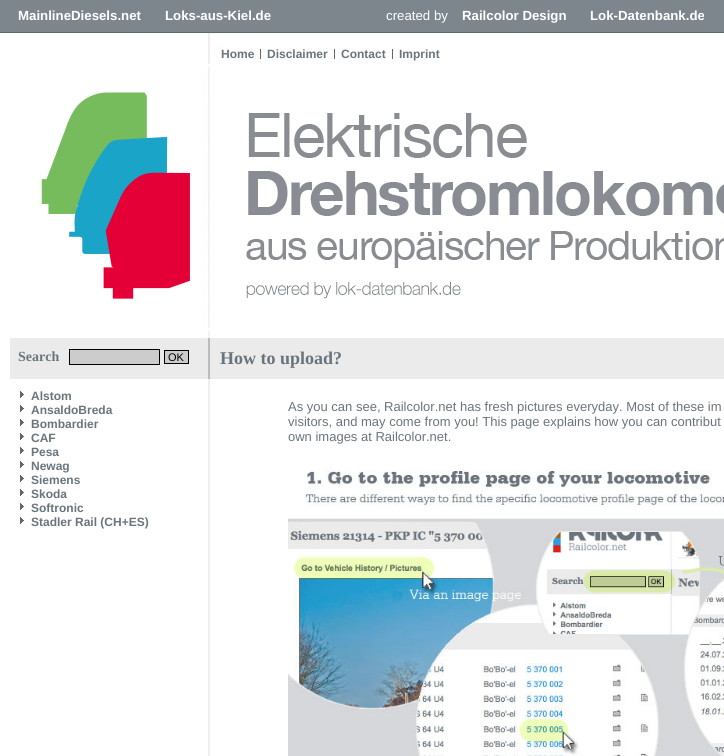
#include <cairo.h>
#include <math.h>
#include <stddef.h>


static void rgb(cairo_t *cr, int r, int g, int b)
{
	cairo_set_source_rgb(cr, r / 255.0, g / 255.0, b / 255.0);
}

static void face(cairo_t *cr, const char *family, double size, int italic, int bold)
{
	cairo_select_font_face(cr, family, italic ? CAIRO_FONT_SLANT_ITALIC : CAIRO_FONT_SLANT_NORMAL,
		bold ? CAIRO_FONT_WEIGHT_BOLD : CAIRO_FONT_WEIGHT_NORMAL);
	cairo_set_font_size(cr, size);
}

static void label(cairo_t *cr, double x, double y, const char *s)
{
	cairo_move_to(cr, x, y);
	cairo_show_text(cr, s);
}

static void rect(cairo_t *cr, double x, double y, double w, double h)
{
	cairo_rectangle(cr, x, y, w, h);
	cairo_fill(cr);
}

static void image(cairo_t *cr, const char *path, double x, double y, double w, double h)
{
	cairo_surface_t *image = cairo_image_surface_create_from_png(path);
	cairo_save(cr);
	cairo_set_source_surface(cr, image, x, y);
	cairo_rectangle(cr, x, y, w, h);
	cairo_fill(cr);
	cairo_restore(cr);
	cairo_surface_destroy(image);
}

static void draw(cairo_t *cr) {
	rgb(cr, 255, 255, 255);
	cairo_paint(cr);
	rgb(cr, 125, 134, 141);
	rect(cr, 0, 0, 724, 32);
	rgb(cr, 95, 104, 110);
	rect(cr, 0, 32, 724, 1);
	face(cr, "Liberation Sans", 13.25, 0, 1);
	rgb(cr, 255, 255, 255);
	label(cr, 18, 20, "MainlineDiesels.net");
	label(cr, 165, 20, "Loks-aus-Kiel.de");
	face(cr, "Liberation Sans", 13.25, 0, 0);
	label(cr, 386, 20, "created by");
	face(cr, "Liberation Sans", 13.25, 0, 1);
	label(cr, 462, 20, "Railcolor Design");
	label(cr, 590, 20, "Lok-Datenbank.de");
	rgb(cr, 239, 239, 239);
	rect(cr, 208, 33, 2, 723);
	face(cr, "Liberation Sans", 12, 0, 1);
	rgb(cr, 106, 116, 124);
	label(cr, 221, 58, "Home");
	label(cr, 267, 58, "Disclaimer");
	rgb(cr, 102, 102, 102);
	rect(cr, 260, 49, 1, 10);
	rgb(cr, 106, 116, 124);
	label(cr, 341, 58, "Contact");
	rgb(cr, 102, 102, 102);
	rect(cr, 334, 49, 1, 10);
	rgb(cr, 106, 116, 124);
	label(cr, 399, 58, "Imprint");
	rgb(cr, 102, 102, 102);
	rect(cr, 392, 49, 1, 10);
	image(cr, "image0.png", 41, 64, 683, 274);
	rgb(cr, 235, 235, 235);
	rect(cr, 10, 338, 198, 41);
	rgb(cr, 187, 187, 187);
	rect(cr, 208, 338, 2, 41);
	face(cr, "Liberation Serif", 14, 0, 1);
	rgb(cr, 106, 116, 124);
	label(cr, 18, 361, "Search");
	rgb(cr, 204, 204, 204);
	cairo_rectangle(cr, 69.5, 349.5, 90, 15);
	cairo_fill_preserve(cr);
	rgb(cr, 0, 0, 0);
	cairo_set_line_width(cr, 1);
	cairo_stroke(cr);
	rgb(cr, 204, 204, 204);
	cairo_rectangle(cr, 164.5, 350.5, 24, 13);
	cairo_fill_preserve(cr);
	rgb(cr, 0, 0, 0);
	cairo_stroke(cr);
	face(cr, "Liberation Sans", 11, 0, 0);
	label(cr, 168, 361, "OK");
	image(cr, "image1.png", 20, 391, 4, 7);
	face(cr, "Liberation Sans", 12, 0, 1);
	rgb(cr, 106, 116, 124);
	label(cr, 31, 400, "Alstom");
	image(cr, "image1.png", 20, 405, 4, 7);
	label(cr, 31, 414, "AnsaldoBreda");
	image(cr, "image1.png", 20, 419, 4, 7);
	label(cr, 31, 428, "Bombardier");
	image(cr, "image1.png", 20, 433, 4, 7);
	label(cr, 31, 442, "CAF");
	image(cr, "image1.png", 20, 447, 4, 7);
	label(cr, 31, 456, "Pesa");
	image(cr, "image1.png", 20, 461, 4, 7);
	label(cr, 31, 470, "Newag");
	image(cr, "image1.png", 20, 475, 4, 7);
	label(cr, 31, 484, "Siemens");
	image(cr, "image1.png", 20, 489, 4, 7);
	label(cr, 31, 498, "Skoda");
	image(cr, "image1.png", 20, 503, 4, 7);
	label(cr, 31, 512, "Softronic");
	image(cr, "image1.png", 20, 517, 4, 7);
	label(cr, 31, 526, "Stadler Rail (CH+ES)");
	rgb(cr, 235, 235, 235);
	rect(cr, 210, 338, 514, 41);
	face(cr, "Liberation Serif", 18, 0, 1);
	rgb(cr, 106, 116, 124);
	label(cr, 220, 364, "How to upload?");
	face(cr, "Liberation Sans", 13, 0, 0);
	label(cr, 288, 411, "As you can see, Railcolor.net has fresh pictures everyday. Most of these im");
	label(cr, 288, 426, "visitors, and may come from you! This page explains how you can contribut");
	label(cr, 288, 441, "own images at Railcolor.net.");
	image(cr, "image2.png", 288, 469, 436, 287);
}

int main(void) {
	cairo_surface_t *surface = cairo_image_surface_create(CAIRO_FORMAT_RGB24, 724, 756);
	cairo_t *cr = cairo_create(surface);
	cairo_font_options_t *options = cairo_font_options_create();
	cairo_font_options_set_hint_metrics(options, CAIRO_HINT_METRICS_OFF);
	cairo_font_options_set_hint_style(options, CAIRO_HINT_STYLE_NONE);
	cairo_set_font_options(cr, options);
	cairo_set_miter_limit(cr, 4);
	draw(cr);
	cairo_surface_write_to_png(surface, "render.png");
	cairo_font_options_destroy(options);
	cairo_destroy(cr);
	cairo_surface_destroy(surface);
	return 0;
}
